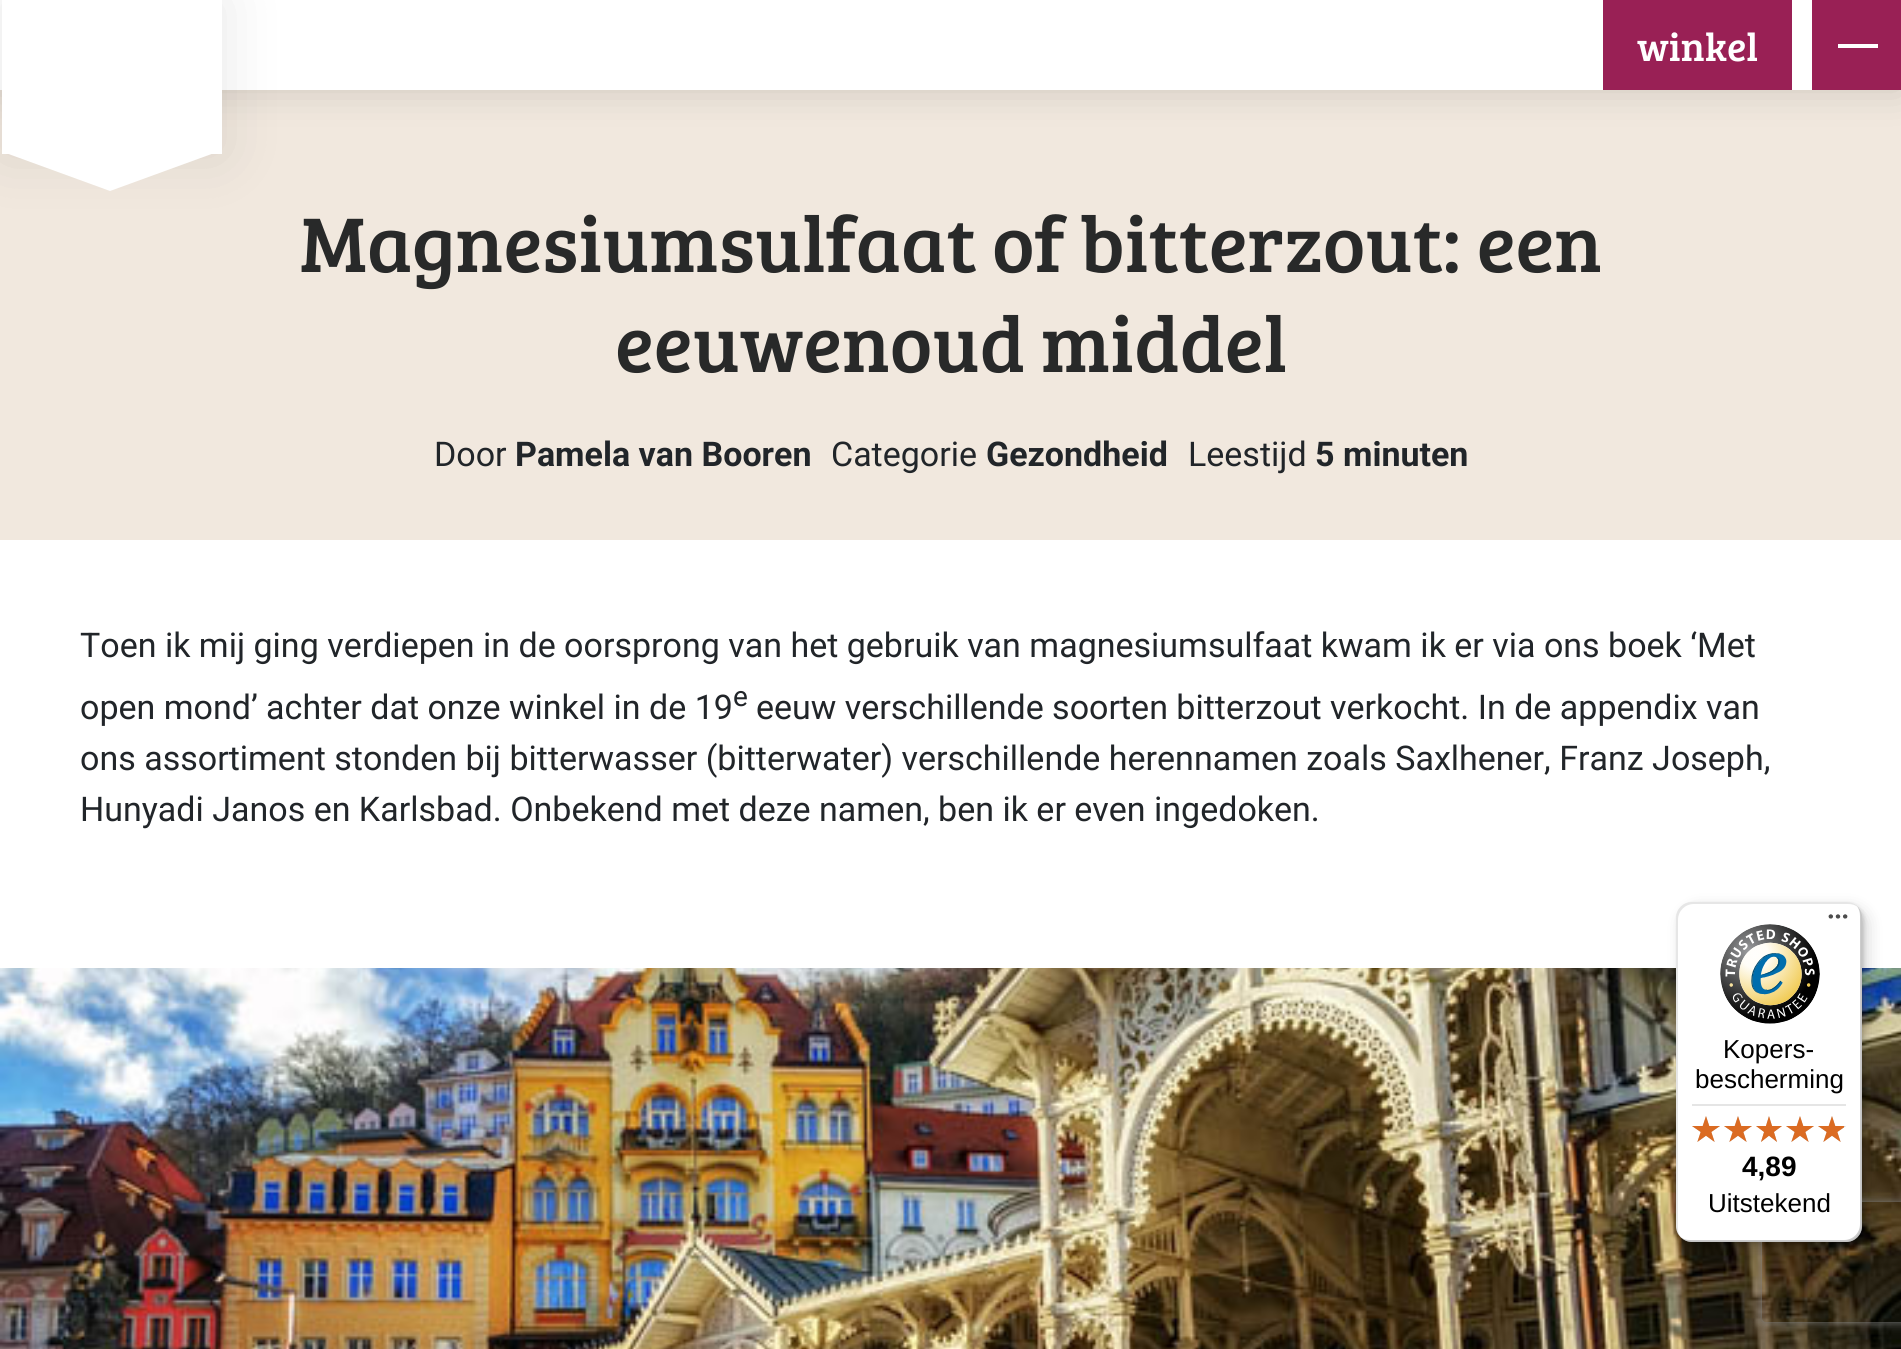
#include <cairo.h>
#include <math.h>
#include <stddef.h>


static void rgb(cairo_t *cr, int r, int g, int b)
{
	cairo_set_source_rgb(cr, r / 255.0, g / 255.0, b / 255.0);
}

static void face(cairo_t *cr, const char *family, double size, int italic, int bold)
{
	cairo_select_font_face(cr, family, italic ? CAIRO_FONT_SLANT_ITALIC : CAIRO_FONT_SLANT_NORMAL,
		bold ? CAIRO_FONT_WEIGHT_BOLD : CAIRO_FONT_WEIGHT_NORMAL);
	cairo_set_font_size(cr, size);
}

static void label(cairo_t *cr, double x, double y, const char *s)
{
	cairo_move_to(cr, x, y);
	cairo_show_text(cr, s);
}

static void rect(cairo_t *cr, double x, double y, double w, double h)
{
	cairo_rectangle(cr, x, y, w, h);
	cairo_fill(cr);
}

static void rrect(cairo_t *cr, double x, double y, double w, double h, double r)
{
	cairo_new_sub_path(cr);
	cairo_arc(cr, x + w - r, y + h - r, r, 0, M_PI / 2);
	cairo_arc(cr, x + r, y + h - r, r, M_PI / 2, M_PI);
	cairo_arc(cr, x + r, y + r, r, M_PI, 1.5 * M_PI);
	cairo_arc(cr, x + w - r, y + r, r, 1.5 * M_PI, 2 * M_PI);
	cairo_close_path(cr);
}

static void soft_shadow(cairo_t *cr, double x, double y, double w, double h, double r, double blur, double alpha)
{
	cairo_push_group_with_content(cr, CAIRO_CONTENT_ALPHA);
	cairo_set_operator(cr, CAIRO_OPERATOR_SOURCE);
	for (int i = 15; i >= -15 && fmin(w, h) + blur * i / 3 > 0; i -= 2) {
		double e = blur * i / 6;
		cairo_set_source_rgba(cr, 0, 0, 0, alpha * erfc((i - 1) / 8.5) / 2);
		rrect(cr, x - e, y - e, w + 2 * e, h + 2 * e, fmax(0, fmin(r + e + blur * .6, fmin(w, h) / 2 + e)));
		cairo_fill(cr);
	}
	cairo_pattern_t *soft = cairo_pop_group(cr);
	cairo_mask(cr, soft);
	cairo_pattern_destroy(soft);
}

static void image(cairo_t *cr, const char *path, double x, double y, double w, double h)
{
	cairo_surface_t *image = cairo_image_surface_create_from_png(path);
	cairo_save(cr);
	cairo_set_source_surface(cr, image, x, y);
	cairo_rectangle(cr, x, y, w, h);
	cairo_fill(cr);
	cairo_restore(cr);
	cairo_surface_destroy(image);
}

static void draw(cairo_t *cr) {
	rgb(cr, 255, 255, 255);
	cairo_paint(cr);
	rgb(cr, 241, 232, 222);
	rect(cr, 0, 90, 1901, 450);
	rgb(cr, 0, 0, 0);
	soft_shadow(cr, 0, 0, 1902, 90, 0, 20, 0.15);
	rgb(cr, 255, 255, 255);
	rect(cr, 0, 0, 1812, 90);
	rgb(cr, 0, 0, 0);
	soft_shadow(cr, 2, 0, 220, 154, 0, 30, 0.1);
	rgb(cr, 255, 255, 255);
	rect(cr, 2, 0, 220, 154);
	cairo_new_path(cr);
	cairo_move_to(cr, 217, 152);
	cairo_line_to(cr, 3, 152);
	cairo_line_to(cr, 110, 191);
	cairo_close_path(cr);
	cairo_fill(cr);
	rgb(cr, 153, 32, 85);
	rect(cr, 1603, 0, 189, 90);
	face(cr, "Bree Serif", 40, 0, 0);
	rgb(cr, 255, 255, 255);
	label(cr, 1637, 61, "winkel");
	rgb(cr, 153, 32, 85);
	rect(cr, 1812, 0, 89, 90);
	rgb(cr, 255, 255, 255);
	rect(cr, 1838, 44, 40, 4);
	face(cr, "Bree Serif", 80, 0, 0);
	rgb(cr, 40, 41, 41);
	label(cr, 300, 272, "Magnesiumsulfaat of bitterzout: een");
	label(cr, 615, 372, "eeuwenoud middel");
	face(cr, "Roboto", 34, 0, 0);
	rgb(cr, 33, 37, 41);
	label(cr, 434, 466, "Door");
	face(cr, "Roboto", 34, 0, 1);
	label(cr, 515, 466, "Pamela van Booren");
	face(cr, "Roboto", 34, 0, 0);
	label(cr, 831, 466, "Categorie");
	face(cr, "Roboto", 34, 0, 1);
	label(cr, 986, 466, "Gezondheid");
	face(cr, "Roboto", 34, 0, 0);
	label(cr, 1188, 466, "Leestijd");
	face(cr, "Roboto", 34, 0, 1);
	label(cr, 1315, 466, "5 minuten");
	face(cr, "Roboto", 34, 0, 0);
	label(cr, 80, 657, "Toen ik mij ging verdiepen in de oorsprong van het gebruik van magnesiumsulfaat kwam ik er via ons boek ‘Met");
	label(cr, 80, 719, "open mond’ achter dat onze winkel in de 19");
	face(cr, "Roboto", 28, 0, 0);
	label(cr, 733, 706, "e");
	face(cr, "Roboto", 34, 0, 0);
	label(cr, 756, 719, "eeuw verschillende soorten bitterzout verkocht. In de appendix van");
	label(cr, 80, 770, "ons assortiment stonden bij bitterwasser (bitterwater) verschillende herennamen zoals Saxlhener, Franz Joseph,");
	label(cr, 80, 821, "Hunyadi Janos en Karlsbad. Onbekend met deze namen, ben ik er even ingedoken.");
	image(cr, "image0.png", 0, 968, 1901, 381);
	rgb(cr, 0, 0, 0);
	soft_shadow(cr, 1682, 908, 186, 340, 16, 8, 0.15);
	soft_shadow(cr, 1678, 904, 186, 340, 16, 2, 0.15);
	cairo_save(cr);
	cairo_set_fill_rule(cr, CAIRO_FILL_RULE_EVEN_ODD);
	cairo_new_path(cr);
	cairo_move_to(cr, 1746, 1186);
	cairo_line_to(cr, 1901, 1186);
	cairo_line_to(cr, 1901, 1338);
	cairo_line_to(cr, 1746, 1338);
	cairo_close_path(cr);
	cairo_move_to(cr, 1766, 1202);
	cairo_line_to(cr, 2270, 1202);
	cairo_curve_to(cr, 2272, 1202, 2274, 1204, 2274, 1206);
	cairo_line_to(cr, 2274, 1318);
	cairo_curve_to(cr, 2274, 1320, 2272, 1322, 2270, 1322);
	cairo_line_to(cr, 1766, 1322);
	cairo_curve_to(cr, 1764, 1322, 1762, 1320, 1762, 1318);
	cairo_line_to(cr, 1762, 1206);
	cairo_curve_to(cr, 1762, 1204, 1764, 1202, 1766, 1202);
	cairo_close_path(cr);
	cairo_clip(cr);
	rgb(cr, 128, 128, 128);
	soft_shadow(cr, 1762, 1202, 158, 120, 4, 5, 1);
	cairo_restore(cr);
	rgb(cr, 255, 255, 255);
	rrect(cr, 1676, 902, 186, 340, 16);
	cairo_fill(cr);
	cairo_set_source_rgba(cr, 0, 0, 0, 0.1);
	cairo_new_path(cr);
	cairo_move_to(cr, 1694, 904);
	cairo_line_to(cr, 1848, 904);
	cairo_curve_to(cr, 1852, 904, 1855, 905, 1858, 907);
	cairo_curve_to(cr, 1855, 904, 1851, 902, 1846, 902);
	cairo_line_to(cr, 1692, 902);
	cairo_curve_to(cr, 1683, 902, 1676, 909, 1676, 918);
	cairo_line_to(cr, 1676, 1226);
	cairo_curve_to(cr, 1676, 1231, 1678, 1235, 1681, 1238);
	cairo_curve_to(cr, 1679, 1235, 1678, 1232, 1678, 1228);
	cairo_line_to(cr, 1678, 920);
	cairo_curve_to(cr, 1678, 911, 1685, 904, 1694, 904);
	cairo_close_path(cr);
	cairo_fill(cr);
	cairo_set_source_rgba(cr, 0, 0, 0, 0.2);
	cairo_new_path(cr);
	cairo_move_to(cr, 1680, 1237);
	cairo_curve_to(cr, 1683, 1240, 1687, 1242, 1692, 1242);
	cairo_line_to(cr, 1846, 1242);
	cairo_curve_to(cr, 1855, 1242, 1862, 1235, 1862, 1226);
	cairo_line_to(cr, 1862, 918);
	cairo_curve_to(cr, 1862, 913, 1860, 909, 1857, 906);
	cairo_curve_to(cr, 1859, 909, 1860, 912, 1860, 916);
	cairo_line_to(cr, 1860, 1224);
	cairo_curve_to(cr, 1860, 1233, 1853, 1240, 1844, 1240);
	cairo_line_to(cr, 1690, 1240);
	cairo_curve_to(cr, 1686, 1240, 1683, 1239, 1680, 1237);
	cairo_close_path(cr);
	cairo_fill(cr);
	cairo_set_source_rgba(cr, 0.196, 0.196, 0.196, 0.2);
	cairo_new_path(cr);
	cairo_move_to(cr, 1681, 1237);
	cairo_curve_to(cr, 1684, 1240, 1688, 1242, 1692, 1242);
	cairo_line_to(cr, 1846, 1242);
	cairo_curve_to(cr, 1855, 1242, 1862, 1235, 1862, 1226);
	cairo_line_to(cr, 1862, 918);
	cairo_curve_to(cr, 1862, 914, 1860, 910, 1857, 907);
	cairo_curve_to(cr, 1860, 910, 1861, 913, 1861, 917);
	cairo_line_to(cr, 1861, 1225);
	cairo_curve_to(cr, 1861, 1234, 1854, 1241, 1845, 1241);
	cairo_line_to(cr, 1691, 1241);
	cairo_curve_to(cr, 1687, 1241, 1684, 1240, 1681, 1237);
	cairo_close_path(cr);
	cairo_fill(cr);
	cairo_set_source_rgba(cr, 1, 1, 1, 0.3);
	cairo_new_path(cr);
	cairo_move_to(cr, 1681, 1237);
	cairo_curve_to(cr, 1684, 1240, 1688, 1242, 1692, 1242);
	cairo_line_to(cr, 1846, 1242);
	cairo_curve_to(cr, 1855, 1242, 1862, 1235, 1862, 1226);
	cairo_line_to(cr, 1862, 918);
	cairo_curve_to(cr, 1862, 914, 1860, 910, 1857, 907);
	cairo_curve_to(cr, 1860, 910, 1861, 913, 1861, 917);
	cairo_line_to(cr, 1861, 1225);
	cairo_curve_to(cr, 1861, 1234, 1854, 1241, 1845, 1241);
	cairo_line_to(cr, 1691, 1241);
	cairo_curve_to(cr, 1687, 1241, 1684, 1240, 1681, 1237);
	cairo_close_path(cr);
	cairo_fill(cr);
	image(cr, "image1.png", 1828, 914, 20, 5);
	image(cr, "image2.png", 1720, 924, 100, 100);
	face(cr, "Liberation Sans", 26, 0, 0);
	rgb(cr, 0, 0, 0);
	label(cr, 1723, 1058, "Kopers-");
	label(cr, 1695, 1088, "bescherming");
	rgb(cr, 229, 229, 229);
	rect(cr, 1692, 1104, 154, 2);
	image(cr, "image3.png", 1692, 1116, 28, 26);
	image(cr, "image3.png", 1724, 1116, 28, 26);
	image(cr, "image4.png", 1756, 1116, 26, 26);
	image(cr, "image3.png", 1786, 1116, 28, 26);
	image(cr, "image3.png", 1818, 1116, 28, 26);
	image(cr, "image5.png", 1692, 1116, 28, 26);
	image(cr, "image5.png", 1724, 1116, 28, 26);
	image(cr, "image6.png", 1756, 1116, 26, 26);
	image(cr, "image5.png", 1786, 1116, 28, 26);
	image(cr, "image7.png", 1818, 1116, 26, 26);
	face(cr, "Liberation Sans", 28, 0, 1);
	rgb(cr, 0, 0, 0);
	label(cr, 1742, 1176, "4,89");
	face(cr, "Liberation Sans", 26, 0, 0);
	label(cr, 1708, 1212, "Uitstekend");
}

int main(void) {
	cairo_surface_t *surface = cairo_image_surface_create(CAIRO_FORMAT_RGB24, 1901, 1349);
	cairo_t *cr = cairo_create(surface);
	cairo_font_options_t *options = cairo_font_options_create();
	cairo_font_options_set_hint_metrics(options, CAIRO_HINT_METRICS_OFF);
	cairo_font_options_set_hint_style(options, CAIRO_HINT_STYLE_NONE);
	cairo_set_font_options(cr, options);
	cairo_set_miter_limit(cr, 4);
	draw(cr);
	cairo_surface_write_to_png(surface, "render.png");
	cairo_font_options_destroy(options);
	cairo_destroy(cr);
	cairo_surface_destroy(surface);
	return 0;
}
